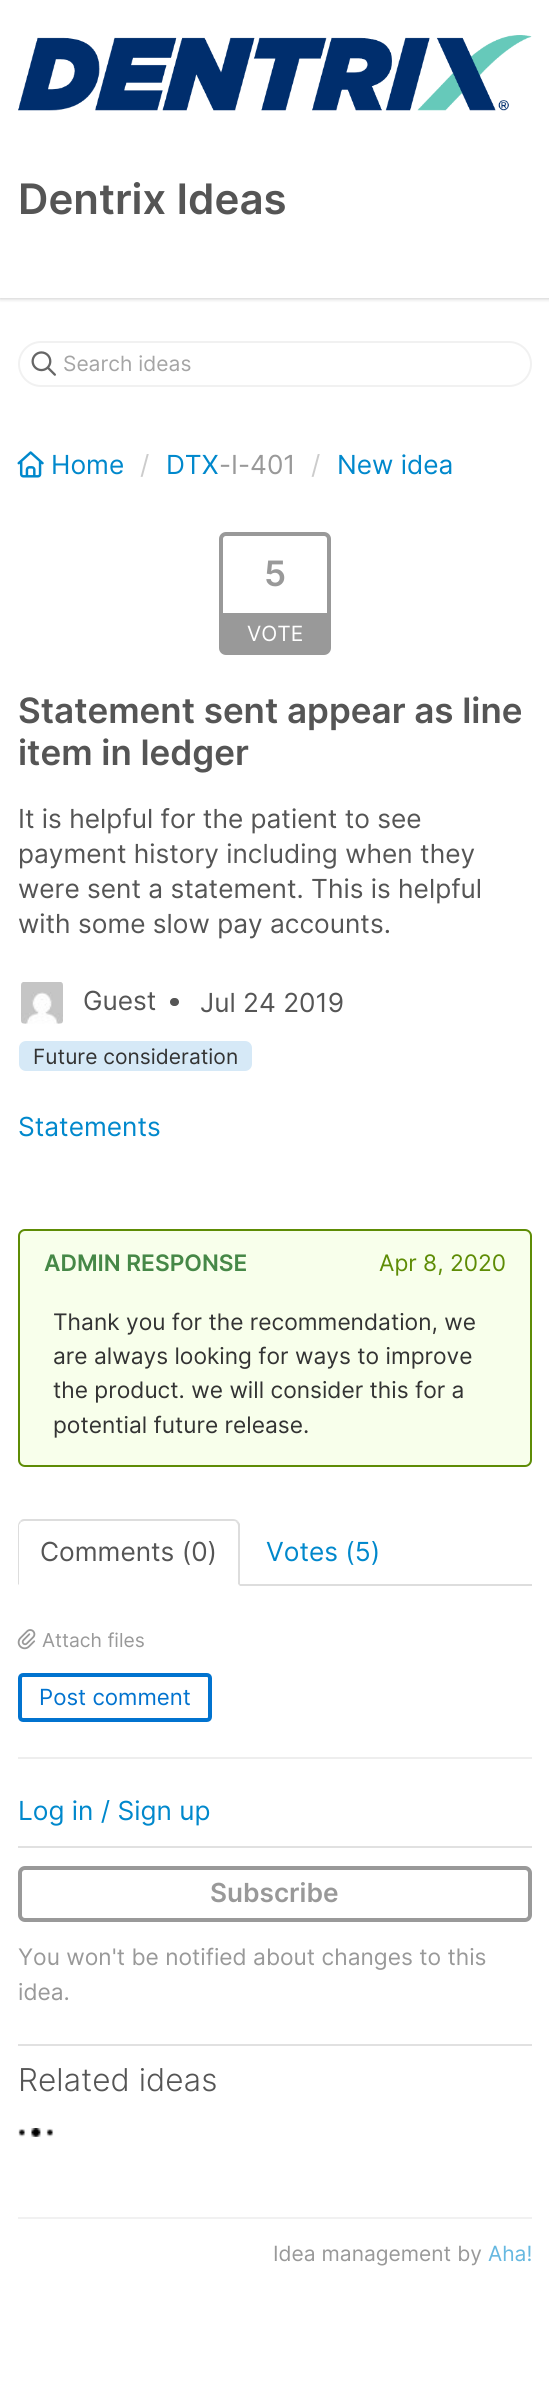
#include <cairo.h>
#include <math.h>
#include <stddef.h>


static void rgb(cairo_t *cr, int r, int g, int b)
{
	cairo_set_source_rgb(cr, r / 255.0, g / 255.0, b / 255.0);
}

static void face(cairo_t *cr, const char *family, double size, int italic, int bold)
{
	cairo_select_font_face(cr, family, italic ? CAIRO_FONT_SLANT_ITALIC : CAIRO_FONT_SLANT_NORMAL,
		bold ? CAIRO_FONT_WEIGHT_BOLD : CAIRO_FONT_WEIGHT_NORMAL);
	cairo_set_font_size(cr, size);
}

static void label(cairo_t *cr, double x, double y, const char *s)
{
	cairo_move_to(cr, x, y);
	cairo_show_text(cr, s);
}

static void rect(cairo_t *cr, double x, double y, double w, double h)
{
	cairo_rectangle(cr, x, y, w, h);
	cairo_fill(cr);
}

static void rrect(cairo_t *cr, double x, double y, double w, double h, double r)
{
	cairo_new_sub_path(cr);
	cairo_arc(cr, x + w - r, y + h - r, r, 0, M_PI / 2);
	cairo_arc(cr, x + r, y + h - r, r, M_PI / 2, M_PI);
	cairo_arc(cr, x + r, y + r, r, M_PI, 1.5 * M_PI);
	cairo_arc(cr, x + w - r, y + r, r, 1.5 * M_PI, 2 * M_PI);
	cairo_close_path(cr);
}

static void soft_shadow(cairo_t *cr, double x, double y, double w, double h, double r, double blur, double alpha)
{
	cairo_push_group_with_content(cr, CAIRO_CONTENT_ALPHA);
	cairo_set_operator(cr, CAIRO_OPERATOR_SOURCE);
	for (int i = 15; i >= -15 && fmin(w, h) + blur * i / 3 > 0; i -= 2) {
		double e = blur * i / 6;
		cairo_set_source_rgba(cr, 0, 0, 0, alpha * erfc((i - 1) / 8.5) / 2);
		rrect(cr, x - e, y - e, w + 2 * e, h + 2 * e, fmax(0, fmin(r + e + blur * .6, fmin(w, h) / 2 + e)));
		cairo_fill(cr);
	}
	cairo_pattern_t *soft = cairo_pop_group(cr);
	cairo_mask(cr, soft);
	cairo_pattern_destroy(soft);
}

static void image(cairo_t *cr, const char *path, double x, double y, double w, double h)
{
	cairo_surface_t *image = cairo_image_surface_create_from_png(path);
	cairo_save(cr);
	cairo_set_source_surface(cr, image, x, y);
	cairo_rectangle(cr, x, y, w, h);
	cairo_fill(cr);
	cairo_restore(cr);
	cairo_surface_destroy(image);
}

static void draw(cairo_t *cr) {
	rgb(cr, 255, 255, 255);
	cairo_paint(cr);
	rgb(cr, 0, 0, 0);
	soft_shadow(cr, 0, 2, 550, 297, 0, 2, 0.2);
	rgb(cr, 255, 255, 255);
	rect(cr, 0, 0, 549, 298);
	image(cr, "image0.png", 18, 35, 514, 76);
	face(cr, "Inter SemiBold", 42, 0, 0);
	rgb(cr, 85, 85, 85);
	label(cr, 18, 214, "Dentrix Ideas");
	rrect(cr, 19, 342, 512, 44, 22);
	rgb(cr, 241, 241, 241);
	cairo_stroke(cr);
	image(cr, "image1.png", 31, 351, 25, 25);
	face(cr, "Inter", 21, 0, 0);
	rgb(cr, 165, 165, 165);
	label(cr, 63, 371, "Search ideas");
	image(cr, "image2.png", 17, 451, 27, 27);
	face(cr, "Inter", 26.25, 0, 0);
	rgb(cr, 0, 136, 204);
	label(cr, 51, 474, "Home");
	rgb(cr, 204, 204, 204);
	label(cr, 140, 474, "/");
	rgb(cr, 0, 136, 204);
	label(cr, 166, 474, "DTX");
	rgb(cr, 153, 153, 153);
	label(cr, 219, 474, "-I-401");
	rgb(cr, 204, 204, 204);
	label(cr, 311, 474, "/");
	rgb(cr, 0, 136, 204);
	label(cr, 337, 474, "New idea");
	rrect(cr, 221, 534, 108, 119, 5);
	rgb(cr, 153, 153, 153);
	cairo_set_line_width(cr, 4);
	cairo_stroke(cr);
	face(cr, "Inter SemiBold", 35, 0, 0);
	label(cr, 264, 586, "5");
	rect(cr, 223, 613, 104, 38);
	face(cr, "Inter", 21, 0, 0);
	rgb(cr, 255, 255, 255);
	label(cr, 247, 641, "VOTE");
	rgb(cr, 238, 238, 238);
	rect(cr, 18, 1757, 514, 2);
	face(cr, "Inter SemiBold", 35, 0, 0);
	rgb(cr, 85, 85, 85);
	label(cr, 18, 723, "Statement sent appear as line");
	label(cr, 18, 765, "item in ledger");
	face(cr, "Inter", 26.25, 0, 0);
	label(cr, 18, 828, "It is helpful for the patient to see");
	label(cr, 18, 863, "payment history including when they");
	label(cr, 18, 898, "were sent a statement. This is helpful");
	label(cr, 18, 933, "with some slow pay accounts.");
	image(cr, "image3.png", 21, 982, 42, 42);
	label(cr, 83, 1010, "Guest");
	rrect(cr, 170, 998, 9, 8, 4);
	cairo_fill(cr);
	label(cr, 200, 1012, "Jul 24 2019");
	rgb(cr, 214, 233, 247);
	rrect(cr, 19, 1041, 233, 30, 7);
	cairo_fill(cr);
	face(cr, "Inter", 21, 0, 0);
	rgb(cr, 51, 51, 51);
	label(cr, 33, 1064, "Future consideration");
	face(cr, "Inter", 26.25, 0, 0);
	rgb(cr, 0, 136, 204);
	label(cr, 18, 1136, "Statements");
	rgb(cr, 248, 255, 235);
	rrect(cr, 19, 1230, 512, 236, 6);
	cairo_fill_preserve(cr);
	rgb(cr, 94, 140, 5);
	cairo_set_line_width(cr, 2);
	cairo_stroke(cr);
	face(cr, "Inter SemiBold", 22.75, 0, 0);
	rgb(cr, 70, 136, 71);
	label(cr, 44, 1271, "ADMIN RESPONSE");
	face(cr, "Inter", 22.75, 0, 0);
	rgb(cr, 94, 140, 5);
	label(cr, 379, 1271, "Apr 8, 2020");
	rgb(cr, 51, 51, 51);
	label(cr, 53, 1330, "Thank you for the recommendation, we");
	label(cr, 53, 1364, "are always looking for ways to improve");
	label(cr, 53, 1398, "the product. we will consider this for a");
	label(cr, 53, 1433, "potential future release.");
	rgb(cr, 221, 221, 221);
	rect(cr, 240, 1584, 292, 2);
	cairo_new_path(cr);
	cairo_move_to(cr, 24, 1519);
	cairo_curve_to(cr, 22, 1519, 21, 1520, 20, 1521);
	cairo_line_to(cr, 21, 1522);
	cairo_line_to(cr, 24, 1521);
	cairo_line_to(cr, 233, 1521);
	cairo_curve_to(cr, 234, 1521, 236, 1521, 236, 1522);
	cairo_line_to(cr, 238, 1521);
	cairo_curve_to(cr, 237, 1520, 235, 1519, 233, 1519);
	cairo_close_path(cr);
	cairo_fill(cr);
	cairo_new_path(cr);
	cairo_move_to(cr, 238, 1521);
	cairo_line_to(cr, 240, 1524);
	cairo_line_to(cr, 240, 1586);
	cairo_line_to(cr, 238, 1584);
	cairo_line_to(cr, 238, 1526);
	cairo_curve_to(cr, 238, 1524, 237, 1523, 236, 1522);
	cairo_close_path(cr);
	cairo_fill(cr);
	cairo_new_path(cr);
	cairo_move_to(cr, 20, 1521);
	cairo_curve_to(cr, 19, 1522, 18, 1524, 18, 1526);
	cairo_line_to(cr, 18, 1585);
	cairo_line_to(cr, 19, 1584);
	cairo_line_to(cr, 19, 1525);
	cairo_line_to(cr, 21, 1522);
	cairo_close_path(cr);
	cairo_fill(cr);
	face(cr, "Inter", 26.25, 0, 0);
	rgb(cr, 85, 85, 85);
	label(cr, 40, 1561, "Comments (0)");
	rgb(cr, 0, 136, 204);
	label(cr, 266, 1561, "Votes (5)");
	image(cr, "image4.png", 17, 1629, 19, 21);
	face(cr, "Inter", 19.25, 0, 0);
	rgb(cr, 153, 153, 153);
	label(cr, 42, 1647, "Attach files");
	rrect(cr, 20, 1675, 190, 45, 3);
	rgb(cr, 1, 115, 207);
	cairo_set_line_width(cr, 4);
	cairo_stroke(cr);
	face(cr, "Inter", 22.25, 0, 0);
	label(cr, 39, 1705, "Post comment");
	rgb(cr, 225, 225, 225);
	rect(cr, 18, 1846, 514, 2);
	face(cr, "Inter", 26.25, 0, 0);
	rgb(cr, 0, 136, 204);
	label(cr, 18, 1820, "Log in / Sign up");
	rgb(cr, 225, 225, 225);
	rect(cr, 18, 2044, 514, 2);
	rrect(cr, 20, 1868, 510, 52, 5);
	rgb(cr, 153, 153, 153);
	cairo_stroke(cr);
	face(cr, "Inter SemiBold", 26.25, 0, 0);
	label(cr, 210, 1902, "Subscribe");
	face(cr, "Inter", 22.75, 0, 0);
	label(cr, 18, 1965, "You won't be notified about changes to this");
	label(cr, 18, 2000, "idea.");
	face(cr, "Inter Light", 31.5, 0, 0);
	rgb(cr, 85, 85, 85);
	label(cr, 18, 2091, "Related ideas");
	image(cr, "image5.png", 18, 2128, 36, 9);
	rgb(cr, 241, 241, 241);
	rect(cr, 18, 2217, 514, 2);
	face(cr, "Inter", 21, 0, 0);
	rgb(cr, 153, 153, 153);
	label(cr, 273, 2261, "Idea management by");
	rgb(cr, 102, 184, 224);
	label(cr, 488, 2261, "Aha!");
}

int main(void) {
	cairo_surface_t *surface = cairo_image_surface_create(CAIRO_FORMAT_RGB24, 549, 2400);
	cairo_t *cr = cairo_create(surface);
	cairo_font_options_t *options = cairo_font_options_create();
	cairo_font_options_set_hint_metrics(options, CAIRO_HINT_METRICS_OFF);
	cairo_font_options_set_hint_style(options, CAIRO_HINT_STYLE_NONE);
	cairo_set_font_options(cr, options);
	cairo_set_miter_limit(cr, 4);
	draw(cr);
	cairo_surface_write_to_png(surface, "render.png");
	cairo_font_options_destroy(options);
	cairo_destroy(cr);
	cairo_surface_destroy(surface);
	return 0;
}
